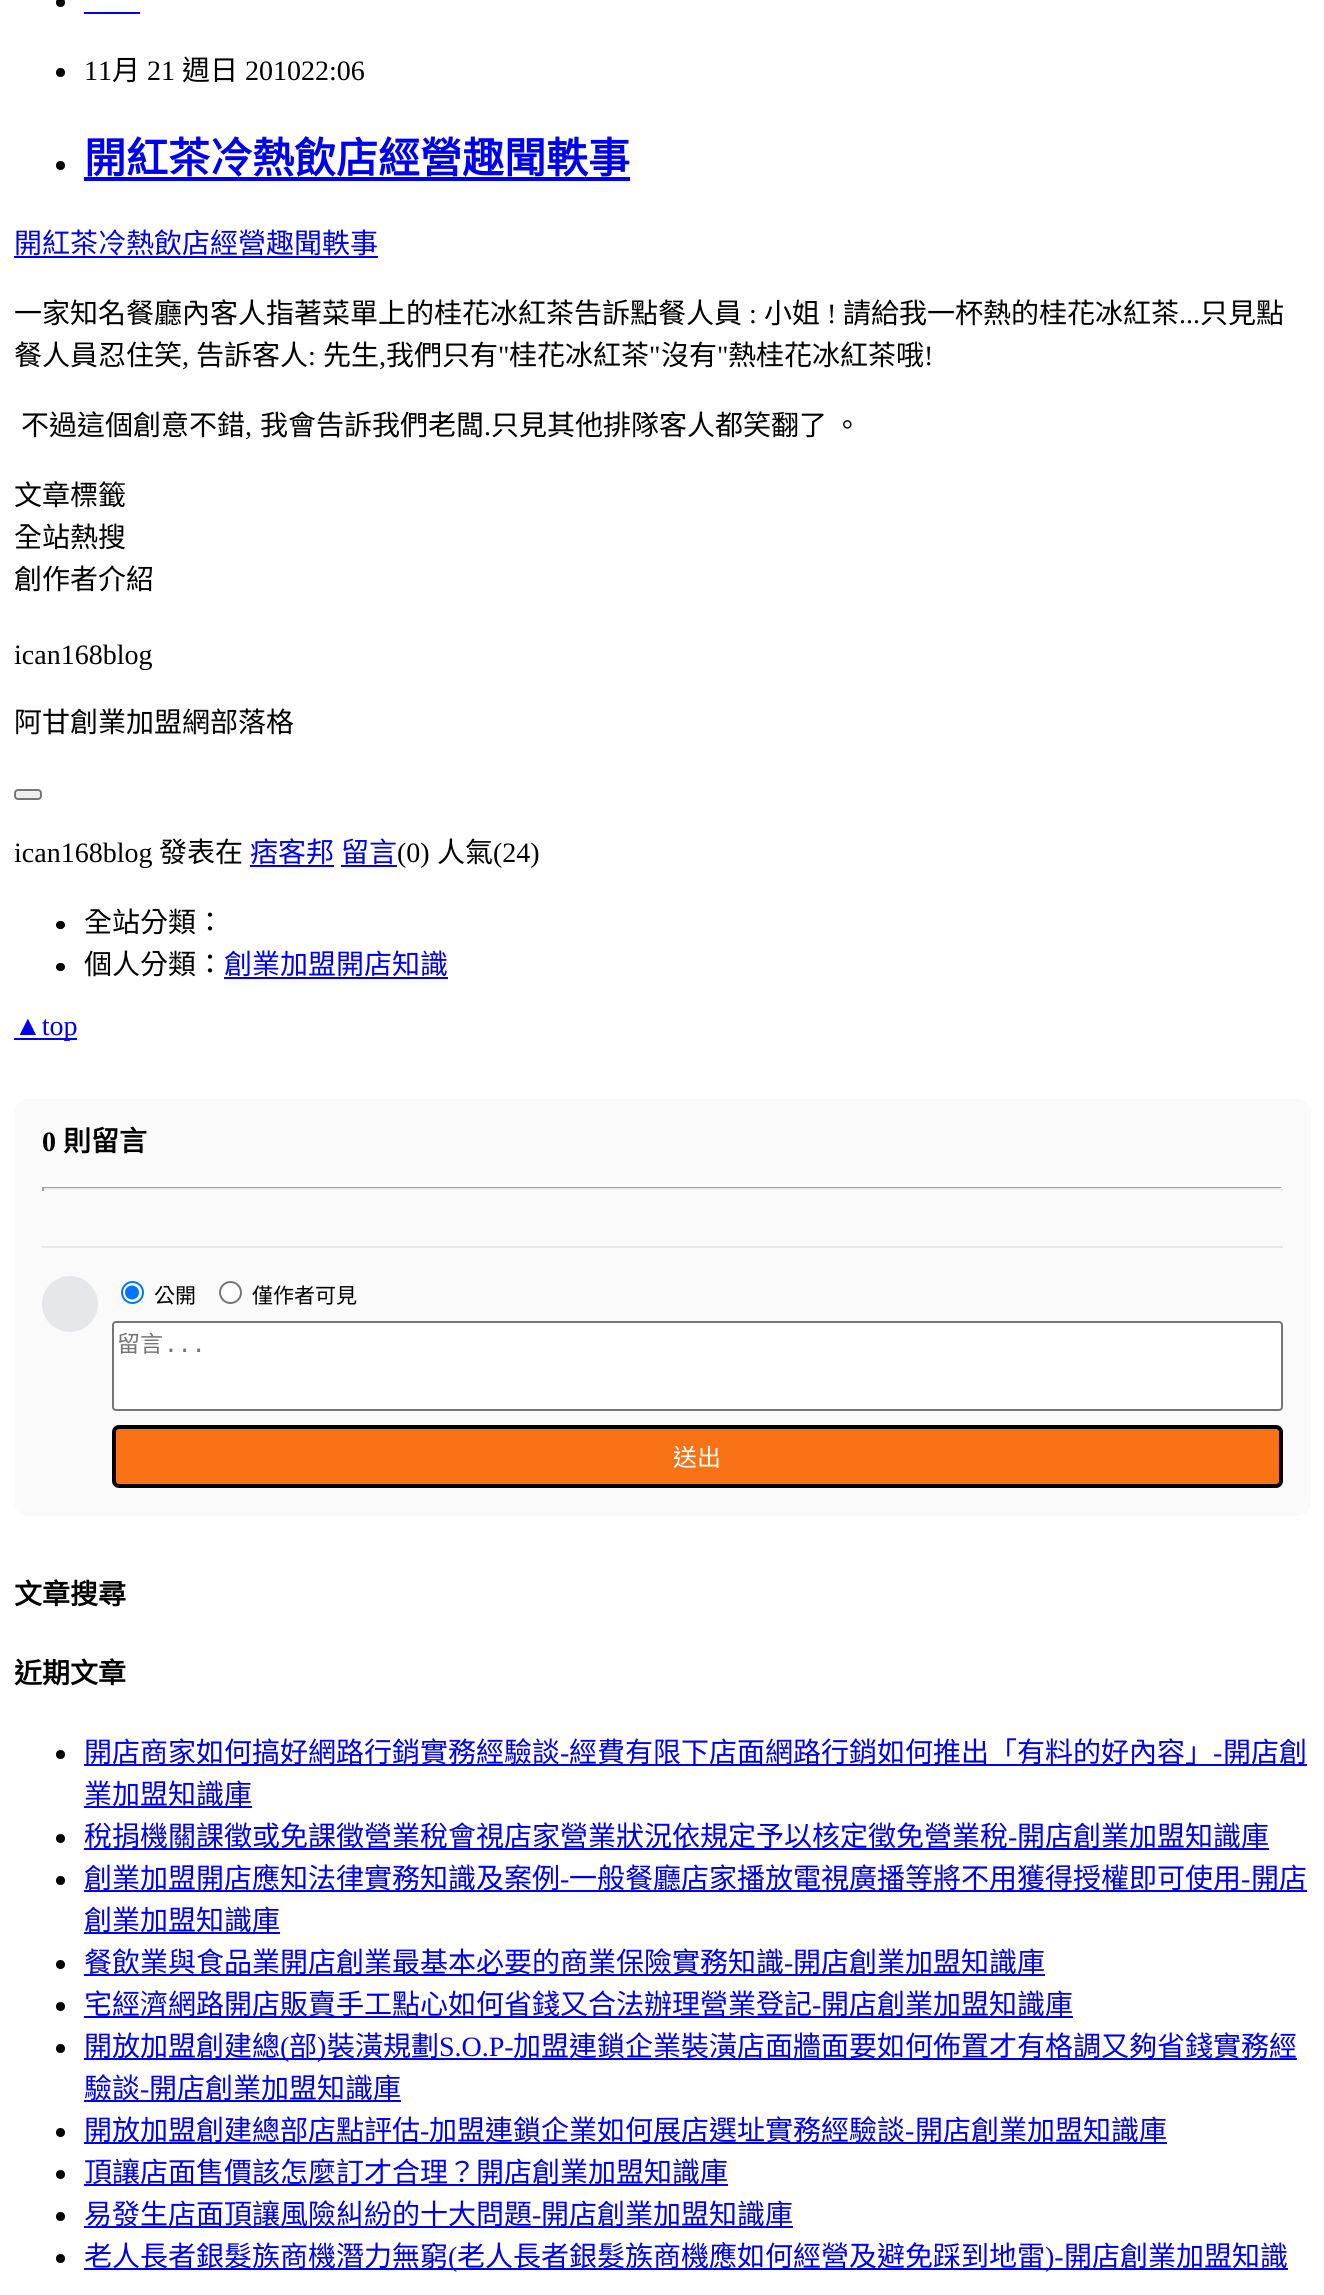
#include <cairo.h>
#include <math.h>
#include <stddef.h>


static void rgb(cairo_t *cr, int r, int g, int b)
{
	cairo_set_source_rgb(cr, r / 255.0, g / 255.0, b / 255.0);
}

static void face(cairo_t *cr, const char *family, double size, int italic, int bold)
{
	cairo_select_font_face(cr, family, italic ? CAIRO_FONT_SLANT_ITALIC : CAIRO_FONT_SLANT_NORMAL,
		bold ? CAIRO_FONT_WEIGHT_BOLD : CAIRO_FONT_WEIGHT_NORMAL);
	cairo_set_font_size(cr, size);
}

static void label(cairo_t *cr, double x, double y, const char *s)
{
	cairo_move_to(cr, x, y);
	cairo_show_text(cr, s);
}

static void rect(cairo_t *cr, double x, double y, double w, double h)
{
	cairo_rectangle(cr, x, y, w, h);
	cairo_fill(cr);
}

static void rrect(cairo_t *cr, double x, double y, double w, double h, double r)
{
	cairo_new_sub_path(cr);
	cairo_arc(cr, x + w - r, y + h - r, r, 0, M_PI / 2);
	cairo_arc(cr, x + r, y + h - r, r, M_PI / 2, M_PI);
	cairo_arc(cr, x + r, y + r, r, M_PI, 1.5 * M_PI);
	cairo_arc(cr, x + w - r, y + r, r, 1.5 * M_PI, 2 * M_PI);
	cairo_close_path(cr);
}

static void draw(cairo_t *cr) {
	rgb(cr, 255, 255, 255);
	cairo_paint(cr);
	rgb(cr, 0, 0, 0);
	cairo_arc(cr, 60.5, 2.5, 4.5, 0, 2 * M_PI);
	cairo_fill(cr);
	rgb(cr, 0, 0, 238);
	rect(cr, 84, 12, 56, 2);
	rgb(cr, 0, 0, 0);
	cairo_arc(cr, 60.5, 72.5, 4.5, 0, 2 * M_PI);
	cairo_fill(cr);
	face(cr, "Liberation Serif", 28, 0, 0);
	label(cr, 84, 80, "11");
	face(cr, "Noto Sans CJK TC", 28, 0, 0);
	label(cr, 112, 80, "月");
	face(cr, "Liberation Serif", 28, 0, 0);
	label(cr, 147, 80, "21");
	face(cr, "Noto Sans CJK TC", 28, 0, 0);
	label(cr, 182, 80, "週日");
	face(cr, "Liberation Serif", 28, 0, 0);
	label(cr, 245, 80, "201022:06");
	cairo_new_path(cr);
	cairo_arc(cr, 60.5, 165.5, 4.5, 0, 2 * M_PI);
	cairo_fill(cr);
	face(cr, "Noto Sans CJK TC", 42, 0, 1);
	rgb(cr, 0, 0, 238);
	label(cr, 84, 173, "開紅茶冷熱飲店經營趣聞軼事");
	rect(cr, 84, 177, 546, 4);
	face(cr, "Noto Sans CJK TC", 28, 0, 0);
	label(cr, 14, 253, "開紅茶冷熱飲店經營趣聞軼事");
	rect(cr, 14, 256, 364, 2);
	rgb(cr, 0, 0, 0);
	label(cr, 14, 323, "一家知名餐廳內客人指著菜單上的桂花冰紅茶告訴點餐人員");
	face(cr, "Liberation Serif", 28, 0, 0);
	label(cr, 749, 323, ":");
	face(cr, "Noto Sans CJK TC", 28, 0, 0);
	label(cr, 764, 323, "小姐");
	face(cr, "Liberation Serif", 28, 0, 0);
	label(cr, 827, 323, "!");
	face(cr, "Noto Sans CJK TC", 28, 0, 0);
	label(cr, 843, 323, "請給我一杯熱的桂花冰紅茶");
	face(cr, "Liberation Serif", 28, 0, 0);
	label(cr, 1179, 323, "...");
	face(cr, "Noto Sans CJK TC", 28, 0, 0);
	label(cr, 1200, 323, "只見點");
	label(cr, 14, 365, "餐人員忍住笑");
	face(cr, "Liberation Serif", 28, 0, 0);
	label(cr, 182, 365, ",");
	face(cr, "Noto Sans CJK TC", 28, 0, 0);
	label(cr, 196, 365, "告訴客人");
	face(cr, "Liberation Serif", 28, 0, 0);
	label(cr, 308, 365, ":");
	face(cr, "Noto Sans CJK TC", 28, 0, 0);
	label(cr, 323, 365, "先生");
	face(cr, "Liberation Serif", 28, 0, 0);
	label(cr, 379, 365, ",");
	face(cr, "Noto Sans CJK TC", 28, 0, 0);
	label(cr, 386, 365, "我們只有");
	face(cr, "Liberation Serif", 28, 0, 0);
	label(cr, 498, 365, "\"");
	face(cr, "Noto Sans CJK TC", 28, 0, 0);
	label(cr, 509, 365, "桂花冰紅茶");
	face(cr, "Liberation Serif", 28, 0, 0);
	label(cr, 649, 365, "\"");
	face(cr, "Noto Sans CJK TC", 28, 0, 0);
	label(cr, 661, 365, "沒有");
	face(cr, "Liberation Serif", 28, 0, 0);
	label(cr, 717, 365, "\"");
	face(cr, "Noto Sans CJK TC", 28, 0, 0);
	label(cr, 728, 365, "熱桂花冰紅茶哦");
	face(cr, "Liberation Serif", 28, 0, 0);
	label(cr, 924, 365, "!");
	face(cr, "Noto Sans CJK TC", 28, 0, 0);
	label(cr, 21, 435, "不過這個創意不錯");
	face(cr, "Liberation Serif", 28, 0, 0);
	label(cr, 245, 435, ",");
	face(cr, "Noto Sans CJK TC", 28, 0, 0);
	label(cr, 260, 435, "我會告訴我們老闆");
	face(cr, "Liberation Serif", 28, 0, 0);
	label(cr, 484, 435, ".");
	face(cr, "Noto Sans CJK TC", 28, 0, 0);
	label(cr, 491, 435, "只見其他排隊客人都笑翻了 。");
	label(cr, 14, 505, "文章標籤");
	label(cr, 14, 547, "全站熱搜");
	label(cr, 14, 589, "創作者介紹");
	face(cr, "Liberation Serif", 28, 0, 0);
	label(cr, 14, 664, "ican168blog");
	face(cr, "Noto Sans CJK TC", 28, 0, 0);
	label(cr, 14, 732, "阿甘創業加盟網部落格");
	rgb(cr, 239, 239, 239);
	rrect(cr, 15, 790, 26, 9, 3);
	cairo_fill_preserve(cr);
	rgb(cr, 118, 118, 118);
	cairo_stroke(cr);
	face(cr, "Liberation Serif", 28, 0, 0);
	rgb(cr, 0, 0, 0);
	label(cr, 14, 862, "ican168blog");
	face(cr, "Noto Sans CJK TC", 28, 0, 0);
	label(cr, 159, 862, "發表在");
	rgb(cr, 0, 0, 238);
	label(cr, 250, 862, "痞客邦");
	rect(cr, 250, 865, 84, 2);
	label(cr, 341, 862, "留言");
	rect(cr, 341, 865, 56, 2);
	face(cr, "Liberation Serif", 28, 0, 0);
	rgb(cr, 0, 0, 0);
	label(cr, 397, 862, "(0)");
	face(cr, "Noto Sans CJK TC", 28, 0, 0);
	label(cr, 437, 862, "人氣");
	face(cr, "Liberation Serif", 28, 0, 0);
	label(cr, 493, 862, "(24)");
	rrect(cr, 56, 921, 9, 8, 4);
	cairo_fill(cr);
	face(cr, "Noto Sans CJK TC", 28, 0, 0);
	label(cr, 84, 932, "全站分類：");
	rrect(cr, 56, 963, 9, 8, 4);
	cairo_fill(cr);
	label(cr, 84, 974, "個人分類：");
	rgb(cr, 0, 0, 238);
	label(cr, 224, 974, "創業加盟開店知識");
	rect(cr, 224, 977, 224, 2);
	rect(cr, 14, 1038, 63, 2);
	face(cr, "Liberation Serif", 28, 0, 0);
	label(cr, 14, 1035, "▲top");
	rgb(cr, 250, 250, 250);
	rrect(cr, 14, 1099, 1297, 417, 14);
	cairo_fill(cr);
	face(cr, "Liberation Serif", 28, 0, 1);
	rgb(cr, 0, 0, 0);
	label(cr, 42, 1151, "0");
	face(cr, "Noto Sans CJK TC", 28, 0, 1);
	label(cr, 63, 1151, "則留言");
	rgb(cr, 159, 159, 159);
	rect(cr, 42, 1187, 1241, 1);
	rgb(cr, 238, 238, 238);
	rect(cr, 1281, 1187, 2, 4);
	rect(cr, 42, 1188, 1241, 2);
	rgb(cr, 159, 159, 159);
	rect(cr, 42, 1187, 2, 4);
	rgb(cr, 229, 231, 235);
	rect(cr, 42, 1246, 1241, 2);
	cairo_new_path(cr);
	cairo_arc(cr, 70, 1304, 28, 0, 2 * M_PI);
	cairo_fill(cr);
	rgb(cr, 255, 255, 255);
	cairo_arc(cr, 132.5, 1292.5, 10.5, 0, 2 * M_PI);
	cairo_fill_preserve(cr);
	rgb(cr, 0, 117, 255);
	cairo_stroke(cr);
	cairo_arc(cr, 132, 1292.5, 7, 0, 2 * M_PI);
	cairo_fill(cr);
	face(cr, "Noto Sans CJK TC", 21, 0, 0);
	rgb(cr, 0, 0, 0);
	label(cr, 154, 1303, "公開");
	rgb(cr, 255, 255, 255);
	cairo_new_path(cr);
	cairo_arc(cr, 230.5, 1292.5, 10.5, 0, 2 * M_PI);
	cairo_fill_preserve(cr);
	rgb(cr, 118, 118, 118);
	cairo_stroke(cr);
	rgb(cr, 0, 0, 0);
	label(cr, 252, 1303, "僅作者可見");
	rgb(cr, 255, 255, 255);
	rrect(cr, 113, 1322, 1169, 88, 3);
	cairo_fill_preserve(cr);
	rgb(cr, 118, 118, 118);
	cairo_stroke(cr);
	face(cr, "Noto Sans CJK TC", 23, 0, 0);
	rgb(cr, 117, 117, 117);
	label(cr, 117, 1352, "留言");
	face(cr, "DejaVu Sans Mono", 23, 0, 0);
	label(cr, 164, 1352, "...");
	rgb(cr, 249, 115, 22);
	rrect(cr, 114, 1427, 1167, 59, 5);
	cairo_fill_preserve(cr);
	rgb(cr, 0, 0, 0);
	cairo_set_line_width(cr, 4);
	cairo_stroke(cr);
	face(cr, "Noto Sans CJK TC", 24, 0, 0);
	rgb(cr, 255, 255, 255);
	label(cr, 673, 1466, "送出");
	face(cr, "Noto Sans CJK TC", 28, 0, 1);
	rgb(cr, 0, 0, 0);
	label(cr, 14, 1604, "文章搜尋");
	label(cr, 14, 1683, "近期文章");
	cairo_new_path(cr);
	cairo_arc(cr, 60.5, 1754.5, 4.5, 0, 2 * M_PI);
	cairo_fill(cr);
	rgb(cr, 0, 0, 238);
	rect(cr, 84, 1764, 1223, 2);
	face(cr, "Noto Sans CJK TC", 28, 0, 0);
	label(cr, 84, 1762, "開店商家如何搞好網路行銷實務經驗談");
	face(cr, "Liberation Serif", 28, 0, 0);
	label(cr, 560, 1762, "-");
	face(cr, "Noto Sans CJK TC", 28, 0, 0);
	label(cr, 569, 1762, "經費有限下店面網路行銷如何推出「有料的好內容」");
	face(cr, "Liberation Serif", 28, 0, 0);
	label(cr, 1213, 1762, "-");
	face(cr, "Noto Sans CJK TC", 28, 0, 0);
	label(cr, 1223, 1762, "開店創");
	rect(cr, 84, 1806, 168, 2);
	label(cr, 84, 1804, "業加盟知識庫");
	rgb(cr, 0, 0, 0);
	cairo_new_path(cr);
	cairo_arc(cr, 60.5, 1838.5, 4.5, 0, 2 * M_PI);
	cairo_fill(cr);
	rgb(cr, 0, 0, 238);
	rect(cr, 84, 1848, 1185, 2);
	label(cr, 84, 1846, "稅捐機關課徵或免課徵營業稅會視店家營業狀況依規定予以核定徵免營業稅");
	face(cr, "Liberation Serif", 28, 0, 0);
	label(cr, 1008, 1846, "-");
	face(cr, "Noto Sans CJK TC", 28, 0, 0);
	label(cr, 1017, 1846, "開店創業加盟知識庫");
	rgb(cr, 0, 0, 0);
	cairo_new_path(cr);
	cairo_arc(cr, 60.5, 1880.5, 4.5, 0, 2 * M_PI);
	cairo_fill(cr);
	rgb(cr, 0, 0, 238);
	rect(cr, 84, 1890, 1223, 2);
	label(cr, 84, 1888, "創業加盟開店應知法律實務知識及案例");
	face(cr, "Liberation Serif", 28, 0, 0);
	label(cr, 560, 1888, "-");
	face(cr, "Noto Sans CJK TC", 28, 0, 0);
	label(cr, 569, 1888, "一般餐廳店家播放電視廣播等將不用獲得授權即可使用");
	face(cr, "Liberation Serif", 28, 0, 0);
	label(cr, 1241, 1888, "-");
	face(cr, "Noto Sans CJK TC", 28, 0, 0);
	label(cr, 1251, 1888, "開店");
	rect(cr, 84, 1932, 196, 2);
	label(cr, 84, 1930, "創業加盟知識庫");
	rgb(cr, 0, 0, 0);
	cairo_new_path(cr);
	cairo_arc(cr, 60.5, 1964.5, 4.5, 0, 2 * M_PI);
	cairo_fill(cr);
	rgb(cr, 0, 0, 238);
	rect(cr, 84, 1974, 961, 2);
	label(cr, 84, 1972, "餐飲業與食品業開店創業最基本必要的商業保險實務知識");
	face(cr, "Liberation Serif", 28, 0, 0);
	label(cr, 784, 1972, "-");
	face(cr, "Noto Sans CJK TC", 28, 0, 0);
	label(cr, 793, 1972, "開店創業加盟知識庫");
	rgb(cr, 0, 0, 0);
	cairo_new_path(cr);
	cairo_arc(cr, 60.5, 2006.5, 4.5, 0, 2 * M_PI);
	cairo_fill(cr);
	rgb(cr, 0, 0, 238);
	rect(cr, 84, 2016, 989, 2);
	label(cr, 84, 2014, "宅經濟網路開店販賣手工點心如何省錢又合法辦理營業登記");
	face(cr, "Liberation Serif", 28, 0, 0);
	label(cr, 812, 2014, "-");
	face(cr, "Noto Sans CJK TC", 28, 0, 0);
	label(cr, 821, 2014, "開店創業加盟知識庫");
	rgb(cr, 0, 0, 0);
	cairo_new_path(cr);
	cairo_arc(cr, 60.5, 2048.5, 4.5, 0, 2 * M_PI);
	cairo_fill(cr);
	rgb(cr, 0, 0, 238);
	rect(cr, 84, 2058, 1213, 2);
	label(cr, 84, 2056, "開放加盟創建總");
	face(cr, "Liberation Serif", 28, 0, 0);
	label(cr, 280, 2056, "(");
	face(cr, "Noto Sans CJK TC", 28, 0, 0);
	label(cr, 289, 2056, "部");
	face(cr, "Liberation Serif", 28, 0, 0);
	label(cr, 317, 2056, ")");
	face(cr, "Noto Sans CJK TC", 28, 0, 0);
	label(cr, 327, 2056, "裝潢規劃");
	face(cr, "Liberation Serif", 28, 0, 0);
	label(cr, 439, 2056, "S.O.P-");
	face(cr, "Noto Sans CJK TC", 28, 0, 0);
	label(cr, 513, 2056, "加盟連鎖企業裝潢店面牆面要如何佈置才有格調又夠省錢實務經");
	rect(cr, 84, 2100, 317, 2);
	label(cr, 84, 2098, "驗談");
	face(cr, "Liberation Serif", 28, 0, 0);
	label(cr, 140, 2098, "-");
	face(cr, "Noto Sans CJK TC", 28, 0, 0);
	label(cr, 149, 2098, "開店創業加盟知識庫");
	rgb(cr, 0, 0, 0);
	cairo_new_path(cr);
	cairo_arc(cr, 60.5, 2132.5, 4.5, 0, 2 * M_PI);
	cairo_fill(cr);
	rgb(cr, 0, 0, 238);
	rect(cr, 84, 2142, 1083, 2);
	label(cr, 84, 2140, "開放加盟創建總部店點評估");
	face(cr, "Liberation Serif", 28, 0, 0);
	label(cr, 420, 2140, "-");
	face(cr, "Noto Sans CJK TC", 28, 0, 0);
	label(cr, 429, 2140, "加盟連鎖企業如何展店選址實務經驗談");
	face(cr, "Liberation Serif", 28, 0, 0);
	label(cr, 905, 2140, "-");
	face(cr, "Noto Sans CJK TC", 28, 0, 0);
	label(cr, 915, 2140, "開店創業加盟知識庫");
	rgb(cr, 0, 0, 0);
	cairo_new_path(cr);
	cairo_arc(cr, 60.5, 2174.5, 4.5, 0, 2 * M_PI);
	cairo_fill(cr);
	rgb(cr, 0, 0, 238);
	rect(cr, 84, 2184, 644, 2);
	label(cr, 84, 2182, "頂讓店面售價該怎麼訂才合理？開店創業加盟知識庫");
	rgb(cr, 0, 0, 0);
	cairo_new_path(cr);
	cairo_arc(cr, 60.5, 2216.5, 4.5, 0, 2 * M_PI);
	cairo_fill(cr);
	rgb(cr, 0, 0, 238);
	rect(cr, 84, 2226, 709, 2);
	label(cr, 84, 2224, "易發生店面頂讓風險糾紛的十大問題");
	face(cr, "Liberation Serif", 28, 0, 0);
	label(cr, 532, 2224, "-");
	face(cr, "Noto Sans CJK TC", 28, 0, 0);
	label(cr, 541, 2224, "開店創業加盟知識庫");
	rgb(cr, 0, 0, 0);
	cairo_new_path(cr);
	cairo_arc(cr, 60.5, 2258.5, 4.5, 0, 2 * M_PI);
	cairo_fill(cr);
	rgb(cr, 0, 0, 238);
	rect(cr, 84, 2268, 1204, 2);
	label(cr, 84, 2266, "老人長者銀髮族商機潛力無窮");
	face(cr, "Liberation Serif", 28, 0, 0);
	label(cr, 448, 2266, "(");
	face(cr, "Noto Sans CJK TC", 28, 0, 0);
	label(cr, 457, 2266, "老人長者銀髮族商機應如何經營及避免踩到地雷");
	face(cr, "Liberation Serif", 28, 0, 0);
	label(cr, 1045, 2266, ")-");
	face(cr, "Noto Sans CJK TC", 28, 0, 0);
	label(cr, 1064, 2266, "開店創業加盟知識");
}

int main(void) {
	cairo_surface_t *surface = cairo_image_surface_create(CAIRO_FORMAT_RGB24, 1324, 2295);
	cairo_t *cr = cairo_create(surface);
	cairo_font_options_t *options = cairo_font_options_create();
	cairo_font_options_set_hint_metrics(options, CAIRO_HINT_METRICS_OFF);
	cairo_font_options_set_hint_style(options, CAIRO_HINT_STYLE_NONE);
	cairo_set_font_options(cr, options);
	cairo_set_miter_limit(cr, 4);
	draw(cr);
	cairo_surface_write_to_png(surface, "render.png");
	cairo_font_options_destroy(options);
	cairo_destroy(cr);
	cairo_surface_destroy(surface);
	return 0;
}
